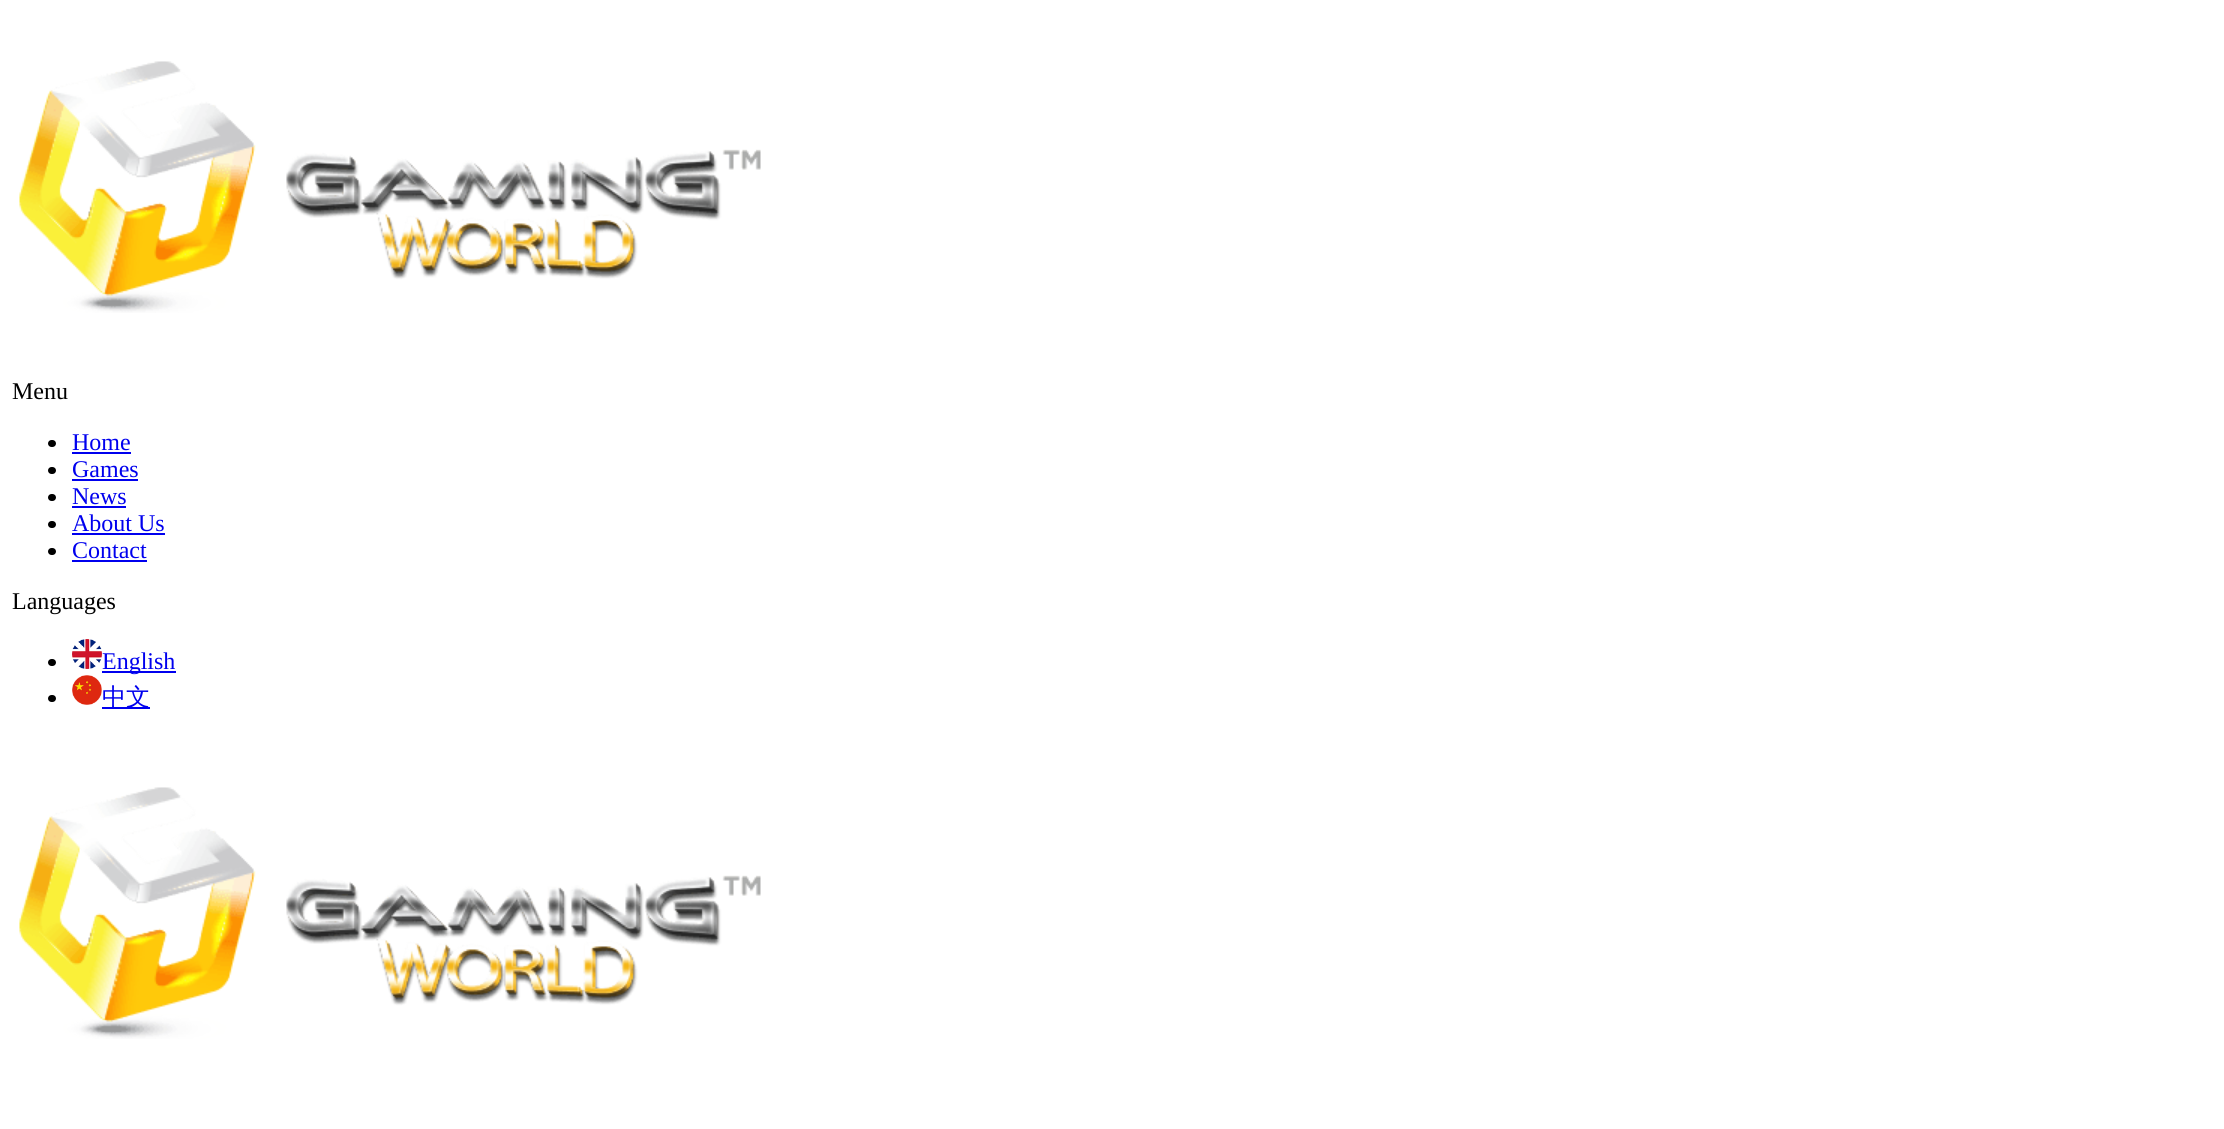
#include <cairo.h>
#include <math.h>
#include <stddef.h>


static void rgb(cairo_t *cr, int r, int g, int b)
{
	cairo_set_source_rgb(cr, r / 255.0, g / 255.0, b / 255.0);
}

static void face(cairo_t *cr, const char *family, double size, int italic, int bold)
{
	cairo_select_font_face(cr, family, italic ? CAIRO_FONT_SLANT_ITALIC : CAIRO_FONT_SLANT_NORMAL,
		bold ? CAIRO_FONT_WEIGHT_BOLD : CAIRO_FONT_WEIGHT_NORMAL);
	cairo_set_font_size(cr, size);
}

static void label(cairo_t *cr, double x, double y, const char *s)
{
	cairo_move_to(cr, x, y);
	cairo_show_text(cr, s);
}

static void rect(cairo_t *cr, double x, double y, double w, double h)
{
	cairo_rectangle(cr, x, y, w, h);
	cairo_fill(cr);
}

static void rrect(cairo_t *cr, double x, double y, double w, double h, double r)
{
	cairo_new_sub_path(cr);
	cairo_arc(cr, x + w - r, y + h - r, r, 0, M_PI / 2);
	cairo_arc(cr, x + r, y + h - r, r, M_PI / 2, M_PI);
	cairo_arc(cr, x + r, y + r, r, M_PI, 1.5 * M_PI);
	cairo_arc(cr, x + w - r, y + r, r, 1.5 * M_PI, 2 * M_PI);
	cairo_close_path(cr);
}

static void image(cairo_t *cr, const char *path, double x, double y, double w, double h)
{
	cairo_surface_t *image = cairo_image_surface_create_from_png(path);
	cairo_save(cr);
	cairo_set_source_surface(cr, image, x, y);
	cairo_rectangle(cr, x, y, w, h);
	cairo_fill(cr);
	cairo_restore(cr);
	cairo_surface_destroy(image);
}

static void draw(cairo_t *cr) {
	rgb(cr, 255, 255, 255);
	cairo_paint(cr);
	image(cr, "image0.png", 19, 61, 742, 252);
	face(cr, "Liberation Serif", 24, 0, 0);
	rgb(cr, 0, 0, 0);
	label(cr, 12, 399, "Menu");
	rrect(cr, 48, 440, 8, 7, 3.5);
	cairo_fill(cr);
	rgb(cr, 0, 0, 238);
	label(cr, 72, 450, "Home");
	rect(cr, 72, 452, 59, 2);
	rgb(cr, 0, 0, 0);
	rrect(cr, 48, 467, 8, 7, 3.5);
	cairo_fill(cr);
	rgb(cr, 0, 0, 238);
	label(cr, 72, 477, "Games");
	rect(cr, 72, 479, 66, 2);
	rgb(cr, 0, 0, 0);
	rrect(cr, 48, 494, 8, 7, 3.5);
	cairo_fill(cr);
	rgb(cr, 0, 0, 238);
	label(cr, 72, 504, "News");
	rect(cr, 72, 506, 54, 2);
	rgb(cr, 0, 0, 0);
	rrect(cr, 48, 521, 8, 7, 3.5);
	cairo_fill(cr);
	rgb(cr, 0, 0, 238);
	label(cr, 72, 531, "About Us");
	rect(cr, 72, 533, 93, 2);
	rgb(cr, 0, 0, 0);
	rrect(cr, 48, 548, 8, 7, 3.5);
	cairo_fill(cr);
	rgb(cr, 0, 0, 238);
	label(cr, 72, 558, "Contact");
	rect(cr, 72, 560, 75, 2);
	rgb(cr, 0, 0, 0);
	label(cr, 12, 609, "Languages");
	rrect(cr, 48, 659, 8, 7, 3.5);
	cairo_fill(cr);
	image(cr, "image1.png", 72, 639, 30, 30);
	rgb(cr, 0, 0, 238);
	rect(cr, 102, 671, 74, 2);
	label(cr, 102, 669, "English");
	rgb(cr, 0, 0, 0);
	rrect(cr, 48, 695, 8, 7, 3.5);
	cairo_fill(cr);
	image(cr, "image2.png", 72, 675, 30, 30);
	rgb(cr, 0, 0, 238);
	rect(cr, 102, 707, 48, 2);
	face(cr, "WenQuanYi Zen Hei Medium", 24, 0, 0);
	label(cr, 102, 705, "中文");
	image(cr, "image0.png", 19, 787, 742, 252);
}

int main(void) {
	cairo_surface_t *surface = cairo_image_surface_create(CAIRO_FORMAT_RGB24, 2224, 1129);
	cairo_t *cr = cairo_create(surface);
	cairo_font_options_t *options = cairo_font_options_create();
	cairo_font_options_set_hint_metrics(options, CAIRO_HINT_METRICS_OFF);
	cairo_font_options_set_hint_style(options, CAIRO_HINT_STYLE_NONE);
	cairo_set_font_options(cr, options);
	cairo_set_miter_limit(cr, 4);
	draw(cr);
	cairo_surface_write_to_png(surface, "render.png");
	cairo_font_options_destroy(options);
	cairo_destroy(cr);
	cairo_surface_destroy(surface);
	return 0;
}
